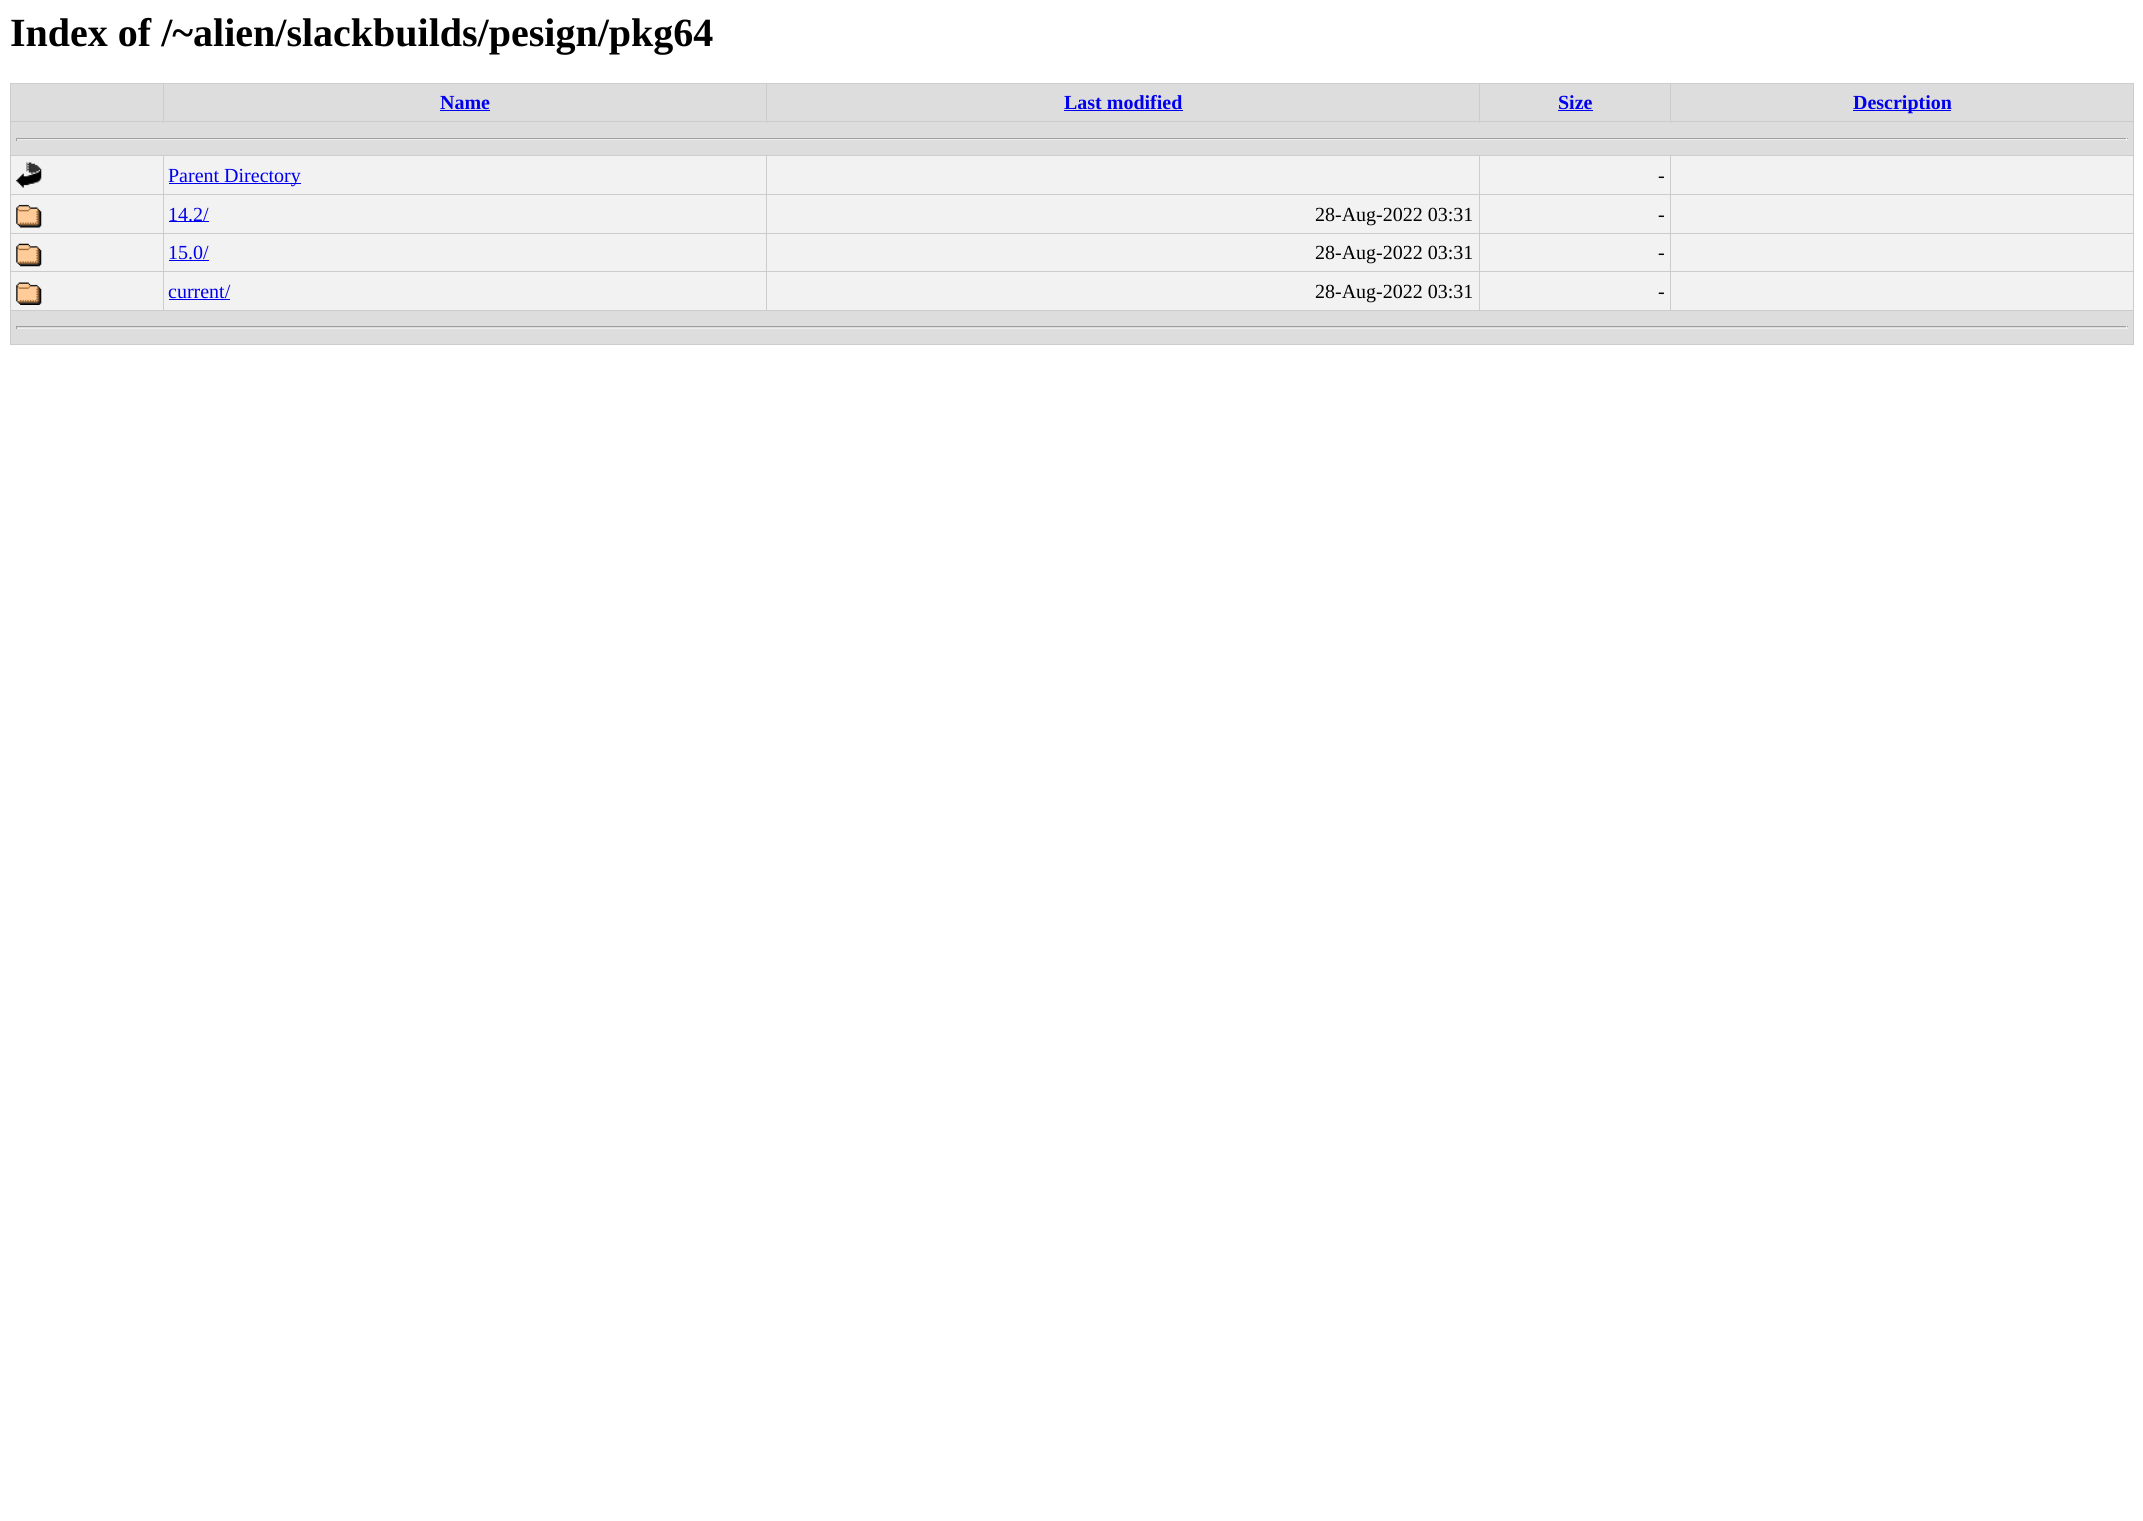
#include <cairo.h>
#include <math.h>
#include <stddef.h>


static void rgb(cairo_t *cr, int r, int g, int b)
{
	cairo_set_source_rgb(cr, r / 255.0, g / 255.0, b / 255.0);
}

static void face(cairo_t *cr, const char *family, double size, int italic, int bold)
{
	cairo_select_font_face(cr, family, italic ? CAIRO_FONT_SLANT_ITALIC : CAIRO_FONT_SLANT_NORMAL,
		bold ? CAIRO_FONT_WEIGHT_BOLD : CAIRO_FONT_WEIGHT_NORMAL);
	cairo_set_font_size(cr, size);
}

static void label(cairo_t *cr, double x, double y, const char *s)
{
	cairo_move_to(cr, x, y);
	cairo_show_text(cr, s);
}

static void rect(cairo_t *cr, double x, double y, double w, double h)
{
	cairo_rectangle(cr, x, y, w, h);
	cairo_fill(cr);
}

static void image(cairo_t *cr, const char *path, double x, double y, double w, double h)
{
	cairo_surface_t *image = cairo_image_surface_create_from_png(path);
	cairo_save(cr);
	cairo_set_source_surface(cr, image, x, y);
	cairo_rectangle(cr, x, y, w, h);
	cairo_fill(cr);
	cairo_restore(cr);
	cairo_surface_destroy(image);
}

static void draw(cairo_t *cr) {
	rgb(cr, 255, 255, 255);
	cairo_paint(cr);
	face(cr, "Liberation Serif", 40, 0, 1);
	rgb(cr, 0, 0, 0);
	label(cr, 10, 46, "Index of /~alien/slackbuilds/pesign/pkg64");
	rgb(cr, 221, 221, 221);
	rect(cr, 11, 84, 152, 39);
	rgb(cr, 204, 204, 204);
	rect(cr, 1670, 83, 464, 1);
	rgb(cr, 221, 221, 221);
	rect(cr, 164, 84, 1315, 39);
	rect(cr, 1480, 84, 190, 39);
	rect(cr, 1671, 84, 462, 39);
	rgb(cr, 204, 204, 204);
	rect(cr, 10, 121, 2124, 1);
	rect(cr, 1670, 83, 1, 40);
	rect(cr, 1479, 83, 192, 1);
	rect(cr, 1479, 83, 1, 40);
	rect(cr, 766, 83, 714, 1);
	rect(cr, 766, 83, 1, 40);
	rect(cr, 163, 83, 605, 1);
	rect(cr, 163, 83, 1, 40);
	rect(cr, 10, 83, 154, 1);
	rect(cr, 1670, 155, 464, 1);
	rgb(cr, 242, 242, 242);
	rect(cr, 11, 156, 2122, 38);
	rgb(cr, 204, 204, 204);
	rect(cr, 1670, 194, 464, 1);
	rgb(cr, 242, 242, 242);
	rect(cr, 11, 195, 2122, 38);
	rgb(cr, 204, 204, 204);
	rect(cr, 1670, 233, 464, 1);
	rgb(cr, 242, 242, 242);
	rect(cr, 11, 234, 2122, 76);
	rgb(cr, 204, 204, 204);
	rect(cr, 1670, 271, 464, 1);
	rect(cr, 10, 310, 2124, 1);
	rect(cr, 1670, 271, 1, 40);
	rect(cr, 1479, 271, 192, 1);
	rect(cr, 1670, 233, 1, 40);
	rect(cr, 1479, 233, 192, 1);
	rect(cr, 1670, 194, 1, 40);
	rect(cr, 1479, 194, 192, 1);
	rect(cr, 1670, 155, 1, 40);
	rect(cr, 1479, 155, 192, 1);
	rect(cr, 1479, 271, 1, 40);
	rect(cr, 766, 271, 714, 1);
	rect(cr, 1479, 233, 1, 40);
	rect(cr, 766, 233, 714, 1);
	rect(cr, 1479, 194, 1, 40);
	rect(cr, 766, 194, 714, 1);
	rect(cr, 1479, 155, 1, 40);
	rect(cr, 766, 155, 714, 1);
	rect(cr, 766, 271, 1, 40);
	rect(cr, 163, 271, 605, 1);
	rect(cr, 766, 233, 1, 40);
	rect(cr, 163, 233, 605, 1);
	rect(cr, 766, 194, 1, 40);
	rect(cr, 163, 194, 605, 1);
	rect(cr, 766, 155, 1, 40);
	rect(cr, 163, 155, 605, 1);
	rect(cr, 163, 271, 1, 40);
	rect(cr, 10, 271, 154, 1);
	rect(cr, 163, 233, 1, 40);
	rect(cr, 10, 233, 154, 1);
	rect(cr, 163, 194, 1, 40);
	rect(cr, 10, 194, 154, 1);
	rect(cr, 163, 155, 1, 40);
	rect(cr, 10, 155, 154, 1);
	rect(cr, 2133, 310, 1, 35);
	rect(cr, 10, 344, 2124, 1);
	rect(cr, 10, 310, 1, 35);
	rect(cr, 10, 271, 1, 40);
	rect(cr, 10, 233, 1, 40);
	rect(cr, 10, 194, 1, 40);
	rect(cr, 10, 155, 1, 40);
	rect(cr, 10, 121, 1, 35);
	rect(cr, 10, 83, 1, 40);
	face(cr, "Liberation Serif", 20, 0, 1);
	rgb(cr, 0, 0, 238);
	label(cr, 440, 109, "Name");
	rect(cr, 440, 110, 50, 1);
	label(cr, 1064, 109, "Last modified");
	rect(cr, 1064, 110, 119, 1);
	label(cr, 1558, 109, "Size");
	rect(cr, 1558, 110, 35, 1);
	rgb(cr, 204, 204, 204);
	rect(cr, 2133, 271, 1, 40);
	rect(cr, 2133, 233, 1, 40);
	rect(cr, 2133, 194, 1, 40);
	rect(cr, 2133, 155, 1, 40);
	rect(cr, 2133, 121, 1, 35);
	rect(cr, 2133, 83, 1, 40);
	rgb(cr, 0, 0, 238);
	rect(cr, 1853, 110, 98, 1);
	label(cr, 1853, 109, "Description");
	rgb(cr, 221, 221, 221);
	rect(cr, 11, 123, 2122, 32);
	rgb(cr, 159, 159, 159);
	rect(cr, 16, 138, 2112, 1);
	rgb(cr, 238, 238, 238);
	rect(cr, 2126, 138, 1, 3);
	rect(cr, 16, 139, 2112, 1);
	rgb(cr, 159, 159, 159);
	rect(cr, 16, 138, 1, 3);
	image(cr, "image0.png", 16, 162, 26, 26);
	rgb(cr, 0, 0, 238);
	rect(cr, 169, 183, 132, 1);
	face(cr, "Liberation Serif", 20, 0, 0);
	label(cr, 168, 182, "Parent Directory");
	rgb(cr, 0, 0, 0);
	label(cr, 1658, 182, "-");
	image(cr, "image1.png", 16, 204, 26, 24);
	rgb(cr, 0, 0, 238);
	rect(cr, 169, 221, 40, 1);
	label(cr, 168, 221, "14.2/");
	rgb(cr, 0, 0, 0);
	label(cr, 1315, 221, "28-Aug-2022 03:31");
	label(cr, 1658, 221, "-");
	image(cr, "image2.png", 16, 243, 26, 24);
	rgb(cr, 0, 0, 238);
	label(cr, 168, 259, "15.0/");
	rect(cr, 169, 260, 40, 1);
	rgb(cr, 0, 0, 0);
	label(cr, 1315, 259, "28-Aug-2022 03:31");
	label(cr, 1658, 259, "-");
	image(cr, "image3.png", 16, 282, 26, 23);
	rgb(cr, 0, 0, 238);
	label(cr, 168, 298, "current/");
	rect(cr, 169, 299, 61, 1);
	rgb(cr, 0, 0, 0);
	label(cr, 1315, 298, "28-Aug-2022 03:31");
	label(cr, 1658, 298, "-");
	rgb(cr, 221, 221, 221);
	rect(cr, 11, 311, 2122, 33);
	rgb(cr, 159, 159, 159);
	rect(cr, 16, 326, 2112, 1);
	rgb(cr, 238, 238, 238);
	rect(cr, 2126, 326, 1, 3);
	rect(cr, 16, 328, 2112, 1);
	rgb(cr, 159, 159, 159);
	rect(cr, 16, 326, 1, 3);
}

int main(void) {
	cairo_surface_t *surface = cairo_image_surface_create(CAIRO_FORMAT_RGB24, 2143, 1521);
	cairo_t *cr = cairo_create(surface);
	cairo_font_options_t *options = cairo_font_options_create();
	cairo_font_options_set_hint_metrics(options, CAIRO_HINT_METRICS_OFF);
	cairo_font_options_set_hint_style(options, CAIRO_HINT_STYLE_NONE);
	cairo_set_font_options(cr, options);
	cairo_set_miter_limit(cr, 4);
	draw(cr);
	cairo_surface_write_to_png(surface, "render.png");
	cairo_font_options_destroy(options);
	cairo_destroy(cr);
	cairo_surface_destroy(surface);
	return 0;
}
